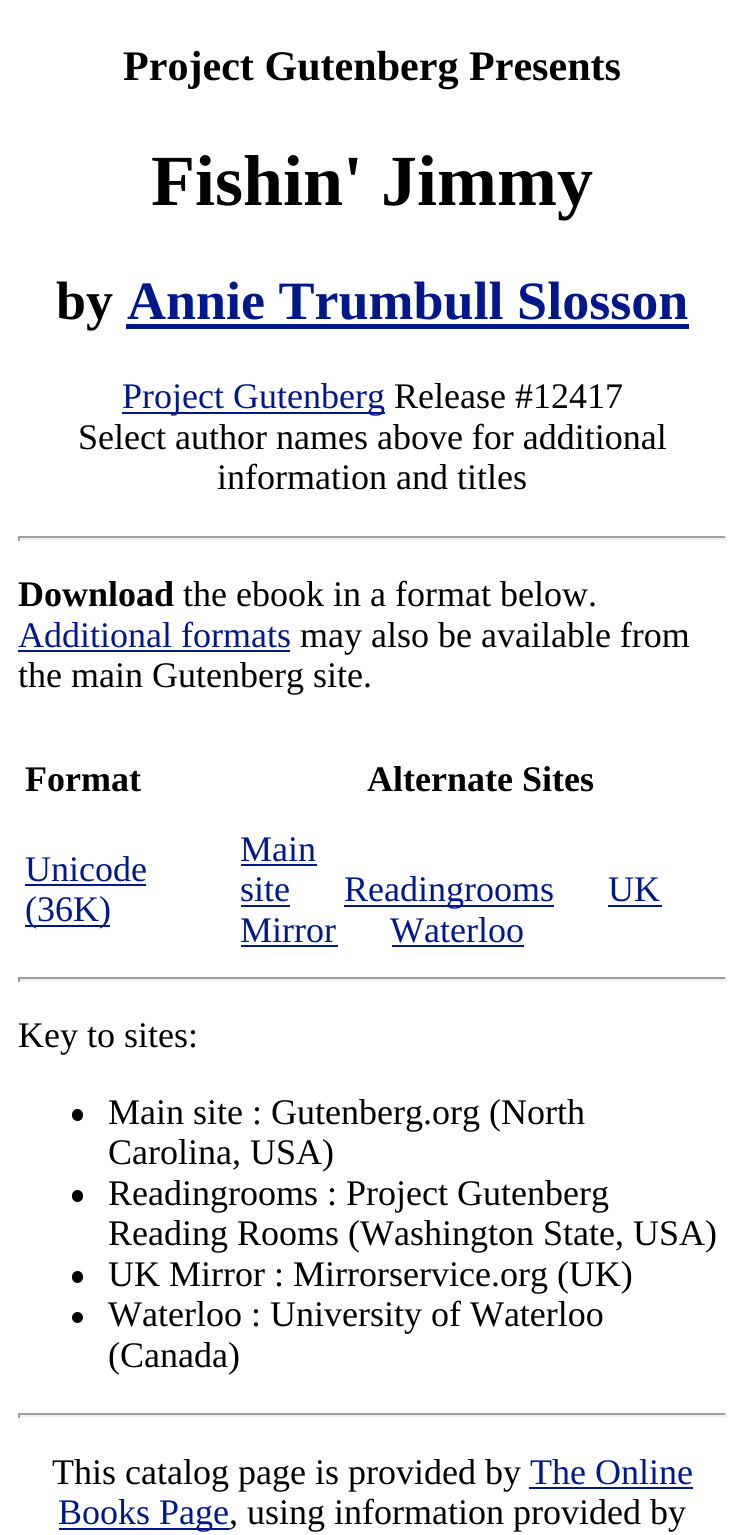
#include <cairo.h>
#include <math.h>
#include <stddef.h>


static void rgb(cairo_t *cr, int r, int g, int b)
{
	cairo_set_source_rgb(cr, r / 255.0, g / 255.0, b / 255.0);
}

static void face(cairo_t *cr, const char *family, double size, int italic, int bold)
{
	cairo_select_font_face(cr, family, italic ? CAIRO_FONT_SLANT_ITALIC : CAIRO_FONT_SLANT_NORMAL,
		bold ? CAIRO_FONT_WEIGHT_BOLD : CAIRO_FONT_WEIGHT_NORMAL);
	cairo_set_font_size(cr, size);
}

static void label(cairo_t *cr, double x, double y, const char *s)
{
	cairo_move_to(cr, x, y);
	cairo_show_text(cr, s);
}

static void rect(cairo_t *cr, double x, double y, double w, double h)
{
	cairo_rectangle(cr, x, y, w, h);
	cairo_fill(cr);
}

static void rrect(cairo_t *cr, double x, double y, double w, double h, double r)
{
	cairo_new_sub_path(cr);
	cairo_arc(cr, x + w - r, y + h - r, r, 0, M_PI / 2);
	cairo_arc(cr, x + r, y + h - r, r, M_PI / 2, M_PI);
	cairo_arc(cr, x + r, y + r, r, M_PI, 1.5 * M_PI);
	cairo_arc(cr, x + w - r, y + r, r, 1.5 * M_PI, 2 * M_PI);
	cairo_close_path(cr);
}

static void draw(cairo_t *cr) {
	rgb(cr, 255, 255, 255);
	cairo_paint(cr);
	face(cr, "Liberation Serif", 42.1, 0, 1);
	rgb(cr, 0, 0, 0);
	label(cr, 123, 80, "Project Gutenberg Presents");
	face(cr, "Liberation Serif", 72, 0, 1);
	label(cr, 151, 205, "Fishin' Jimmy");
	face(cr, "Liberation Serif", 54, 0, 1);
	label(cr, 56, 319, "by");
	rgb(cr, 0, 24, 140);
	label(cr, 127, 319, "Annie Trumbull Slosson");
	rect(cr, 126, 324, 563, 5);
	rect(cr, 122, 412, 263, 2);
	face(cr, "Liberation Serif", 36, 0, 0);
	label(cr, 122, 408, "Project Gutenberg");
	rgb(cr, 0, 0, 0);
	label(cr, 394, 408, "Release #12417");
	label(cr, 78, 449, "Select author names above for additional");
	label(cr, 217, 489, "information and titles");
	rgb(cr, 159, 159, 159);
	rect(cr, 18, 536, 709, 2);
	rgb(cr, 238, 238, 238);
	rect(cr, 725, 536, 2, 5);
	rect(cr, 18, 538, 709, 2);
	rgb(cr, 159, 159, 159);
	rect(cr, 18, 536, 2, 5);
	face(cr, "Liberation Serif", 36, 0, 1);
	rgb(cr, 0, 0, 0);
	label(cr, 18, 606, "Download");
	face(cr, "Liberation Serif", 36, 0, 0);
	label(cr, 183, 606, "the ebook in a format below.");
	rgb(cr, 0, 24, 140);
	label(cr, 18, 647, "Additional formats");
	rect(cr, 18, 650, 272, 2);
	rgb(cr, 0, 0, 0);
	label(cr, 300, 647, "may also be available from");
	label(cr, 18, 687, "the main Gutenberg site.");
	face(cr, "Liberation Serif", 36, 0, 1);
	label(cr, 25, 791, "Format");
	label(cr, 367, 791, "Alternate Sites");
	face(cr, "Liberation Serif", 36, 0, 0);
	rgb(cr, 0, 24, 140);
	label(cr, 25, 881, "Unicode");
	rect(cr, 25, 884, 121, 2);
	rect(cr, 25, 925, 85, 2);
	label(cr, 25, 921, "(36K)");
	label(cr, 240, 861, "Main");
	rect(cr, 241, 864, 76, 2);
	label(cr, 240, 901, "site");
	rect(cr, 241, 905, 49, 2);
	rect(cr, 344, 905, 210, 2);
	label(cr, 344, 901, "Readingrooms");
	label(cr, 608, 901, "UK");
	rect(cr, 608, 905, 54, 2);
	label(cr, 240, 942, "Mirror");
	rect(cr, 241, 945, 97, 2);
	label(cr, 390, 942, "Waterloo");
	rect(cr, 392, 945, 132, 2);
	rgb(cr, 159, 159, 159);
	rect(cr, 18, 977, 709, 2);
	rgb(cr, 238, 238, 238);
	rect(cr, 725, 977, 2, 5);
	rect(cr, 18, 979, 709, 2);
	rgb(cr, 159, 159, 159);
	rect(cr, 18, 977, 2, 5);
	rgb(cr, 0, 0, 0);
	label(cr, 18, 1047, "Key to sites:");
	rrect(cr, 72, 1109, 11, 12, 5.5);
	cairo_fill(cr);
	label(cr, 108, 1124, "Main site : Gutenberg.org (North");
	label(cr, 108, 1164, "Carolina, USA)");
	rrect(cr, 72, 1190, 11, 12, 5.5);
	cairo_fill(cr);
	label(cr, 108, 1205, "Readingrooms : Project Gutenberg");
	label(cr, 108, 1245, "Reading Rooms (Washington State, USA)");
	rrect(cr, 72, 1271, 11, 12, 5.5);
	cairo_fill(cr);
	label(cr, 108, 1286, "UK Mirror : Mirrorservice.org (UK)");
	cairo_new_path(cr);
	cairo_arc(cr, 77.5, 1317.5, 5.5, 0, 2 * M_PI);
	cairo_fill(cr);
	label(cr, 108, 1326, "Waterloo : University of Waterloo");
	label(cr, 108, 1367, "(Canada)");
	rgb(cr, 159, 159, 159);
	rect(cr, 18, 1413, 709, 2);
	rgb(cr, 238, 238, 238);
	rect(cr, 725, 1413, 2, 5);
	rect(cr, 18, 1415, 709, 2);
	rgb(cr, 159, 159, 159);
	rect(cr, 18, 1413, 2, 5);
	rgb(cr, 0, 0, 0);
	label(cr, 52, 1484, "This catalog page is provided by");
	rgb(cr, 0, 24, 140);
	label(cr, 530, 1484, "The Online");
	rect(cr, 529, 1487, 164, 2);
	rect(cr, 59, 1528, 171, 2);
	label(cr, 58, 1524, "Books Page");
	rgb(cr, 0, 0, 0);
	label(cr, 229, 1524, ", using information provided by");
}

int main(void) {
	cairo_surface_t *surface = cairo_image_surface_create(CAIRO_FORMAT_RGB24, 744, 1535);
	cairo_t *cr = cairo_create(surface);
	cairo_font_options_t *options = cairo_font_options_create();
	cairo_font_options_set_hint_metrics(options, CAIRO_HINT_METRICS_OFF);
	cairo_font_options_set_hint_style(options, CAIRO_HINT_STYLE_NONE);
	cairo_set_font_options(cr, options);
	cairo_set_miter_limit(cr, 4);
	draw(cr);
	cairo_surface_write_to_png(surface, "render.png");
	cairo_font_options_destroy(options);
	cairo_destroy(cr);
	cairo_surface_destroy(surface);
	return 0;
}
